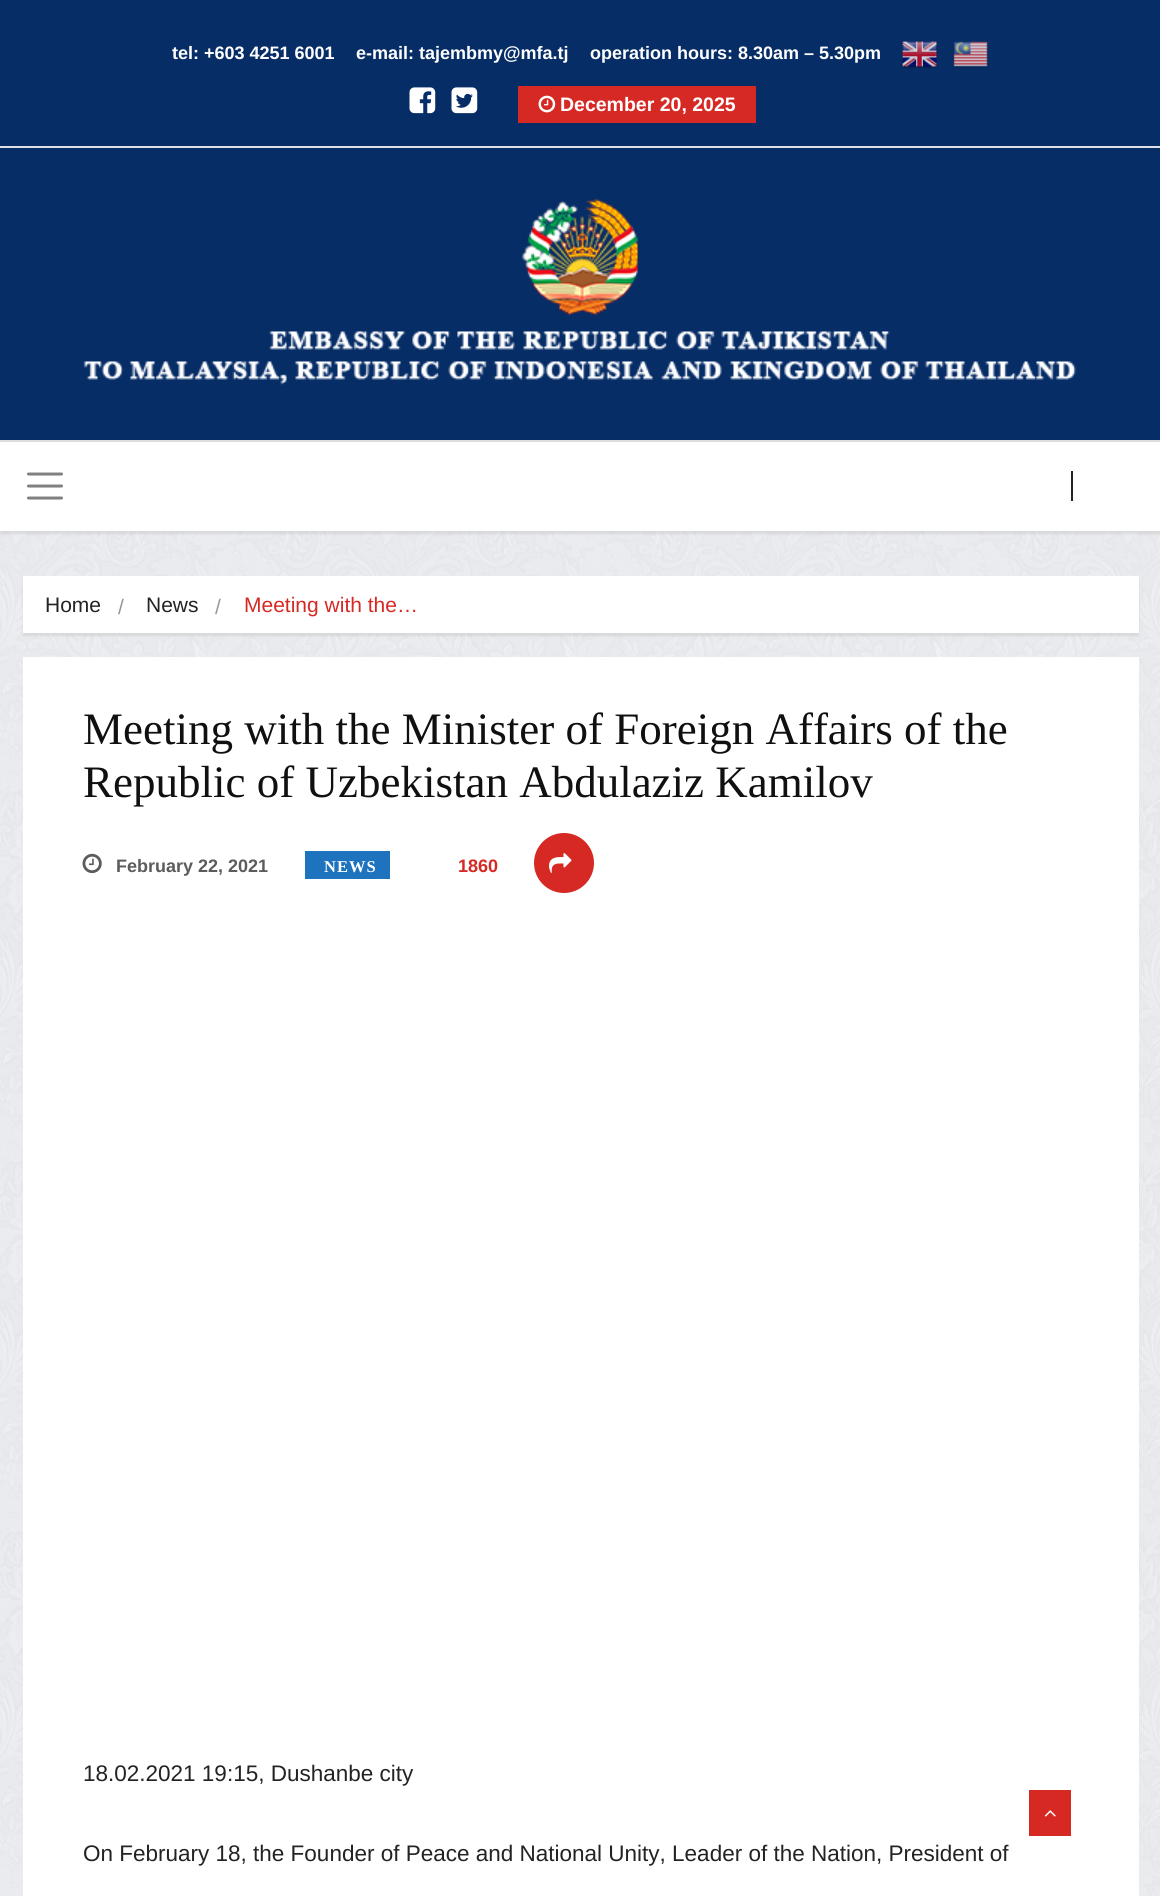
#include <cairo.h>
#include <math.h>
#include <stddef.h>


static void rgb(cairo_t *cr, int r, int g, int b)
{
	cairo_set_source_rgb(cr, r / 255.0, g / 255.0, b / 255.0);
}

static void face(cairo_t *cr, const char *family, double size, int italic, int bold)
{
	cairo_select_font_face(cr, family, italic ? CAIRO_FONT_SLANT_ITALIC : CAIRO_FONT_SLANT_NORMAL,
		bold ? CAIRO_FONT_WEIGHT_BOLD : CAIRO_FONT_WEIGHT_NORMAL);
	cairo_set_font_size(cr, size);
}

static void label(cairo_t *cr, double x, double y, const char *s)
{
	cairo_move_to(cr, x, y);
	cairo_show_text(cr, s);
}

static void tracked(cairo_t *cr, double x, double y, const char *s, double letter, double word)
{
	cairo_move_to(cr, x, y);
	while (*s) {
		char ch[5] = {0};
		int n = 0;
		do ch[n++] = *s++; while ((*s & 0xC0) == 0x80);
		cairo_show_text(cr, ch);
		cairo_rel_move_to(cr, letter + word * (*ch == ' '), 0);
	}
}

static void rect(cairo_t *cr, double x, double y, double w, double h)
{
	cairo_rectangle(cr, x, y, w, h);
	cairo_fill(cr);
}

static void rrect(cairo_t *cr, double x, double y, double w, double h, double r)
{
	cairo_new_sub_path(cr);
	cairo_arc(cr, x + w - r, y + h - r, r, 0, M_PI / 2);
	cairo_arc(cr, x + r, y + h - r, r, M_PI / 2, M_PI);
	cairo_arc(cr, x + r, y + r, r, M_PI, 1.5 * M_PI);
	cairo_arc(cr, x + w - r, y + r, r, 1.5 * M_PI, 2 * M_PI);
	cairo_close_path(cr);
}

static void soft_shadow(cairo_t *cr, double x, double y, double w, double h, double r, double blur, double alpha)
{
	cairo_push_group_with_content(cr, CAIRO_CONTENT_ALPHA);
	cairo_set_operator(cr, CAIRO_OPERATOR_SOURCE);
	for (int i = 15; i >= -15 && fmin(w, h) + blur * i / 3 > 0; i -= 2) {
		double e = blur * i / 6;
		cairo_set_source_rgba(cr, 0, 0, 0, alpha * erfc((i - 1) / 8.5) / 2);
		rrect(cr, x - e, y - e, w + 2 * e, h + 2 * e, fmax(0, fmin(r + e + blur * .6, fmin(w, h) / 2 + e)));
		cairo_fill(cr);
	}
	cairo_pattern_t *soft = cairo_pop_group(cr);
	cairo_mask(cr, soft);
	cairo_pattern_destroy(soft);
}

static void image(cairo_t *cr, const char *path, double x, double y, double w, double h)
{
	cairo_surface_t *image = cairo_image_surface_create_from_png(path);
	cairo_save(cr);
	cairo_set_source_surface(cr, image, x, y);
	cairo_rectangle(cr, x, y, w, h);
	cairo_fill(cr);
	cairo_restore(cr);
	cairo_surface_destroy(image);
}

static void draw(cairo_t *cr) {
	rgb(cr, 240, 241, 244);
	cairo_paint(cr);
	image(cr, "image0.png", 0, 531, 1160, 1365);
	rgb(cr, 7, 45, 103);
	rect(cr, 0, 0, 1160, 146);
	face(cr, "Arimo", 18, 0, 1);
	rgb(cr, 255, 255, 255);
	label(cr, 172, 59, "tel: +603 4251 6001");
	label(cr, 356, 59, "e-mail: tajembmy@mfa.tj");
	label(cr, 590, 59, "operation hours: 8.30am – 5.30pm");
	image(cr, "image1.png", 901, 41, 37, 28);
	image(cr, "image2.png", 952, 41, 37, 28);
	image(cr, "image3.png", 409, 87, 27, 27);
	image(cr, "image4.png", 451, 87, 27, 27);
	rgb(cr, 215, 41, 36);
	rect(cr, 518, 86, 238, 37);
	image(cr, "image5.png", 538, 95, 18, 18);
	face(cr, "Arimo", 19.5, 0, 1);
	rgb(cr, 255, 255, 255);
	label(cr, 560, 111, "December 20, 2025");
	rgb(cr, 7, 45, 103);
	rect(cr, 0, 148, 1160, 292);
	rgb(cr, 222, 226, 230);
	rect(cr, 0, 146, 1160, 2);
	image(cr, "image6.png", 83, 199, 993, 186);
	rgb(cr, 0, 0, 0);
	soft_shadow(cr, 0, 443, 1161, 91, 0, 1.5, 0.08);
	rgb(cr, 255, 255, 255);
	rect(cr, 0, 442, 1160, 89);
	rgb(cr, 221, 221, 221);
	rect(cr, 0, 440, 1160, 2);
	cairo_new_path(cr);
	cairo_move_to(cr, 28.5, 474);
	cairo_line_to(cr, 61.5, 474);
	cairo_move_to(cr, 28.5, 486);
	cairo_line_to(cr, 61.5, 486);
	cairo_move_to(cr, 28.5, 498);
	cairo_line_to(cr, 61.5, 498);
	rgb(cr, 128, 128, 128);
	cairo_set_line_width(cr, 3);
	cairo_set_line_cap(cr, CAIRO_LINE_CAP_ROUND);
	cairo_stroke(cr);
	rgb(cr, 35, 35, 35);
	rect(cr, 1071, 471, 2, 30);
	rgb(cr, 0, 0, 0);
	soft_shadow(cr, 23, 579, 1116, 57, 0, 1.5, 0.08);
	rgb(cr, 255, 255, 255);
	rect(cr, 23, 576, 1116, 57);
	face(cr, "Arimo", 21, 0, 0);
	rgb(cr, 35, 35, 35);
	label(cr, 45, 612, "Home");
	rgb(cr, 153, 153, 153);
	label(cr, 118, 614, "/");
	rgb(cr, 35, 35, 35);
	label(cr, 146, 612, "News");
	rgb(cr, 153, 153, 153);
	label(cr, 215, 614, "/");
	rgb(cr, 215, 41, 36);
	label(cr, 244, 612, "Meeting with the…");
	rgb(cr, 255, 255, 255);
	rect(cr, 23, 657, 1116, 1239);
	face(cr, "Liberation Serif", 45, 0, 0);
	rgb(cr, 16, 16, 16);
	label(cr, 83, 744, "Meeting with the Minister of Foreign Affairs of the");
	label(cr, 83, 797, "Republic of Uzbekistan Abdulaziz Kamilov");
	image(cr, "image7.png", 82, 853, 20, 21);
	face(cr, "Arimo", 18, 0, 1);
	rgb(cr, 92, 92, 92);
	label(cr, 116, 872, "February 22, 2021");
	rgb(cr, 30, 115, 190);
	rect(cr, 305, 851, 85, 28);
	face(cr, "Liberation Serif", 16.5, 0, 1);
	rgb(cr, 255, 255, 255);
	tracked(cr, 324, 872, "NEWS", 1, 0);
	face(cr, "Arimo", 18, 0, 1);
	rgb(cr, 215, 41, 36);
	label(cr, 458, 872, "1860");
	cairo_new_path(cr);
	cairo_arc(cr, 564, 863, 30, 0, 2 * M_PI);
	cairo_fill(cr);
	image(cr, "image8.png", 549, 853, 23, 20);
	face(cr, "Arimo", 22.5, 0, 0);
	rgb(cr, 35, 35, 35);
	label(cr, 83, 1781, "18.02.2021 19:15, Dushanbe city");
	label(cr, 83, 1861, "On February 18, the Founder of Peace and National Unity, Leader of the Nation, President of");
	rgb(cr, 215, 41, 36);
	rect(cr, 1029, 1790, 42, 46);
	image(cr, "image9.png", 1044, 1810, 12, 7);
}

int main(void) {
	cairo_surface_t *surface = cairo_image_surface_create(CAIRO_FORMAT_RGB24, 1160, 1896);
	cairo_t *cr = cairo_create(surface);
	cairo_font_options_t *options = cairo_font_options_create();
	cairo_font_options_set_hint_metrics(options, CAIRO_HINT_METRICS_OFF);
	cairo_font_options_set_hint_style(options, CAIRO_HINT_STYLE_NONE);
	cairo_set_font_options(cr, options);
	cairo_set_miter_limit(cr, 4);
	draw(cr);
	cairo_surface_write_to_png(surface, "render.png");
	cairo_font_options_destroy(options);
	cairo_destroy(cr);
	cairo_surface_destroy(surface);
	return 0;
}
